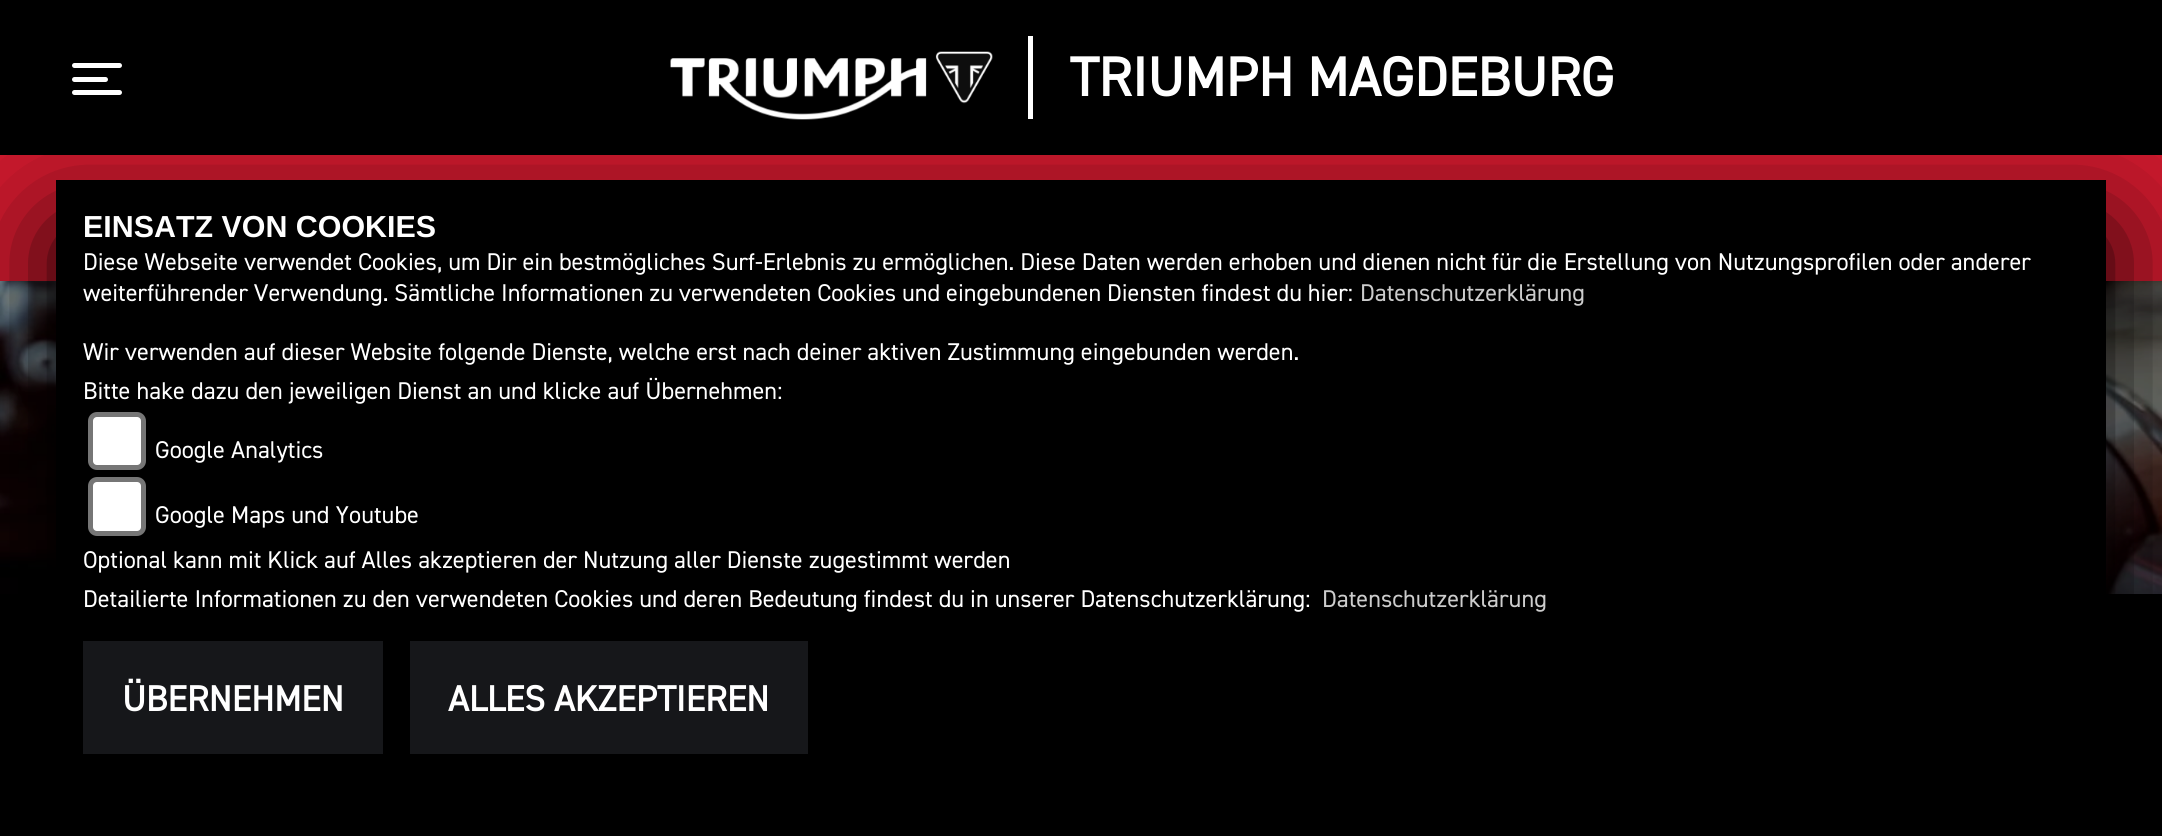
#include <cairo.h>
#include <math.h>
#include <stddef.h>


static void rgb(cairo_t *cr, int r, int g, int b)
{
	cairo_set_source_rgb(cr, r / 255.0, g / 255.0, b / 255.0);
}

static void face(cairo_t *cr, const char *family, double size, int italic, int bold)
{
	cairo_select_font_face(cr, family, italic ? CAIRO_FONT_SLANT_ITALIC : CAIRO_FONT_SLANT_NORMAL,
		bold ? CAIRO_FONT_WEIGHT_BOLD : CAIRO_FONT_WEIGHT_NORMAL);
	cairo_set_font_size(cr, size);
}

static void label(cairo_t *cr, double x, double y, const char *s)
{
	cairo_move_to(cr, x, y);
	cairo_show_text(cr, s);
}

static void tracked(cairo_t *cr, double x, double y, const char *s, double letter, double word)
{
	cairo_move_to(cr, x, y);
	while (*s) {
		char ch[5] = {0};
		int n = 0;
		do ch[n++] = *s++; while ((*s & 0xC0) == 0x80);
		cairo_show_text(cr, ch);
		cairo_rel_move_to(cr, letter + word * (*ch == ' '), 0);
	}
}

static void rect(cairo_t *cr, double x, double y, double w, double h)
{
	cairo_rectangle(cr, x, y, w, h);
	cairo_fill(cr);
}

static void rrect(cairo_t *cr, double x, double y, double w, double h, double r)
{
	cairo_new_sub_path(cr);
	cairo_arc(cr, x + w - r, y + h - r, r, 0, M_PI / 2);
	cairo_arc(cr, x + r, y + h - r, r, M_PI / 2, M_PI);
	cairo_arc(cr, x + r, y + r, r, M_PI, 1.5 * M_PI);
	cairo_arc(cr, x + w - r, y + r, r, 1.5 * M_PI, 2 * M_PI);
	cairo_close_path(cr);
}

static void soft_shadow(cairo_t *cr, double x, double y, double w, double h, double r, double blur, double alpha)
{
	cairo_push_group_with_content(cr, CAIRO_CONTENT_ALPHA);
	cairo_set_operator(cr, CAIRO_OPERATOR_SOURCE);
	for (int i = 15; i >= -15 && fmin(w, h) + blur * i / 3 > 0; i -= 2) {
		double e = blur * i / 6;
		cairo_set_source_rgba(cr, 0, 0, 0, alpha * erfc((i - 1) / 8.5) / 2);
		rrect(cr, x - e, y - e, w + 2 * e, h + 2 * e, fmax(0, fmin(r + e + blur * .6, fmin(w, h) / 2 + e)));
		cairo_fill(cr);
	}
	cairo_pattern_t *soft = cairo_pop_group(cr);
	cairo_mask(cr, soft);
	cairo_pattern_destroy(soft);
}

static void image(cairo_t *cr, const char *path, double x, double y, double w, double h)
{
	cairo_surface_t *image = cairo_image_surface_create_from_png(path);
	cairo_save(cr);
	cairo_set_source_surface(cr, image, x, y);
	cairo_rectangle(cr, x, y, w, h);
	cairo_fill(cr);
	cairo_restore(cr);
	cairo_surface_destroy(image);
}

static void draw(cairo_t *cr) {
	rgb(cr, 0, 0, 0);
	cairo_paint(cr);
	rgb(cr, 255, 255, 255);
	rrect(cr, 72, 63, 50, 5, 2.5);
	cairo_fill(cr);
	rrect(cr, 72, 77, 36, 5, 2.5);
	cairo_fill(cr);
	rrect(cr, 72, 90, 50, 5, 2.5);
	cairo_fill(cr);
	image(cr, "image0.png", 670, 51, 323, 69);
	rect(cr, 1028, 36, 5, 83);
	face(cr, "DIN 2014", 55.25, 0, 1);
	label(cr, 1070, 96, "TRIUMPH MAGDEBURG");
	rgb(cr, 205, 25, 45);
	rect(cr, 0, 155, 2162, 126);
	image(cr, "image1.png", 0, 281, 2162, 313);
	cairo_save(cr);
	cairo_rectangle(cr, 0, 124, 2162, 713);
	cairo_clip(cr);
	rgb(cr, 0, 0, 0);
	soft_shadow(cr, 56, 230, 2050, 600, 0, 56, 1);
	cairo_restore(cr);
	rgb(cr, 0, 0, 0);
	rect(cr, 56, 180, 2050, 414);
	face(cr, "Liberation Sans", 30.4, 0, 1);
	rgb(cr, 255, 255, 255);
	label(cr, 83, 237, "EINSATZ VON COOKIES");
	face(cr, "DIN 2014", 24.3, 0, 0);
	tracked(cr, 83, 270, "Diese Webseite verwendet Cookies, um Dir ein bestmögliches Surf-Erlebnis zu ermöglichen. Diese Daten werden erhoben und dienen nicht für die Erstellung von Nutzungsprofilen oder anderer", 0, -0.1);
	tracked(cr, 83, 301, "weiterführender Verwendung. Sämtliche Informationen zu verwendeten Cookies und eingebundenen Diensten findest du hier:", 0, -0.25);
	rgb(cr, 204, 204, 204);
	label(cr, 1360, 301, "Datenschutzerklärung");
	rgb(cr, 255, 255, 255);
	tracked(cr, 83, 360, "Wir verwenden auf dieser Website folgende Dienste, welche erst nach deiner aktiven Zustimmung eingebunden werden.", 0, -0.1);
	label(cr, 83, 399, "Bitte hake dazu den jeweiligen Dienst an und klicke auf Übernehmen:");
	rrect(cr, 90.5, 414.5, 53, 53, 6.5);
	cairo_fill_preserve(cr);
	rgb(cr, 118, 118, 118);
	cairo_set_line_width(cr, 5);
	cairo_stroke(cr);
	rgb(cr, 255, 255, 255);
	label(cr, 155, 458, "Google Analytics");
	rrect(cr, 90.5, 479.5, 53, 54, 6.5);
	cairo_fill_preserve(cr);
	rgb(cr, 118, 118, 118);
	cairo_stroke(cr);
	rgb(cr, 255, 255, 255);
	label(cr, 155, 523, "Google Maps und Youtube");
	tracked(cr, 83, 568, "Optional kann mit Klick auf Alles akzeptieren der Nutzung aller Dienste zugestimmt werden", 0, -0.1);
	tracked(cr, 83, 607, "Detailierte Informationen zu den verwendeten Cookies und deren Bedeutung findest du in unserer Datenschutzerklärung:", 0, -0.1);
	rgb(cr, 204, 204, 204);
	label(cr, 1322, 607, "Datenschutzerklärung");
	rgb(cr, 22, 23, 26);
	rect(cr, 83, 641, 300, 113);
	face(cr, "DIN 2014", 36, 0, 1);
	rgb(cr, 255, 255, 255);
	label(cr, 122, 711, "ÜBERNEHMEN");
	rgb(cr, 22, 23, 26);
	rect(cr, 410, 641, 398, 113);
	rgb(cr, 255, 255, 255);
	label(cr, 448, 711, "ALLES AKZEPTIEREN");
}

int main(void) {
	cairo_surface_t *surface = cairo_image_surface_create(CAIRO_FORMAT_RGB24, 2162, 836);
	cairo_t *cr = cairo_create(surface);
	cairo_font_options_t *options = cairo_font_options_create();
	cairo_font_options_set_hint_metrics(options, CAIRO_HINT_METRICS_OFF);
	cairo_font_options_set_hint_style(options, CAIRO_HINT_STYLE_NONE);
	cairo_set_font_options(cr, options);
	cairo_set_miter_limit(cr, 4);
	draw(cr);
	cairo_surface_write_to_png(surface, "render.png");
	cairo_font_options_destroy(options);
	cairo_destroy(cr);
	cairo_surface_destroy(surface);
	return 0;
}
